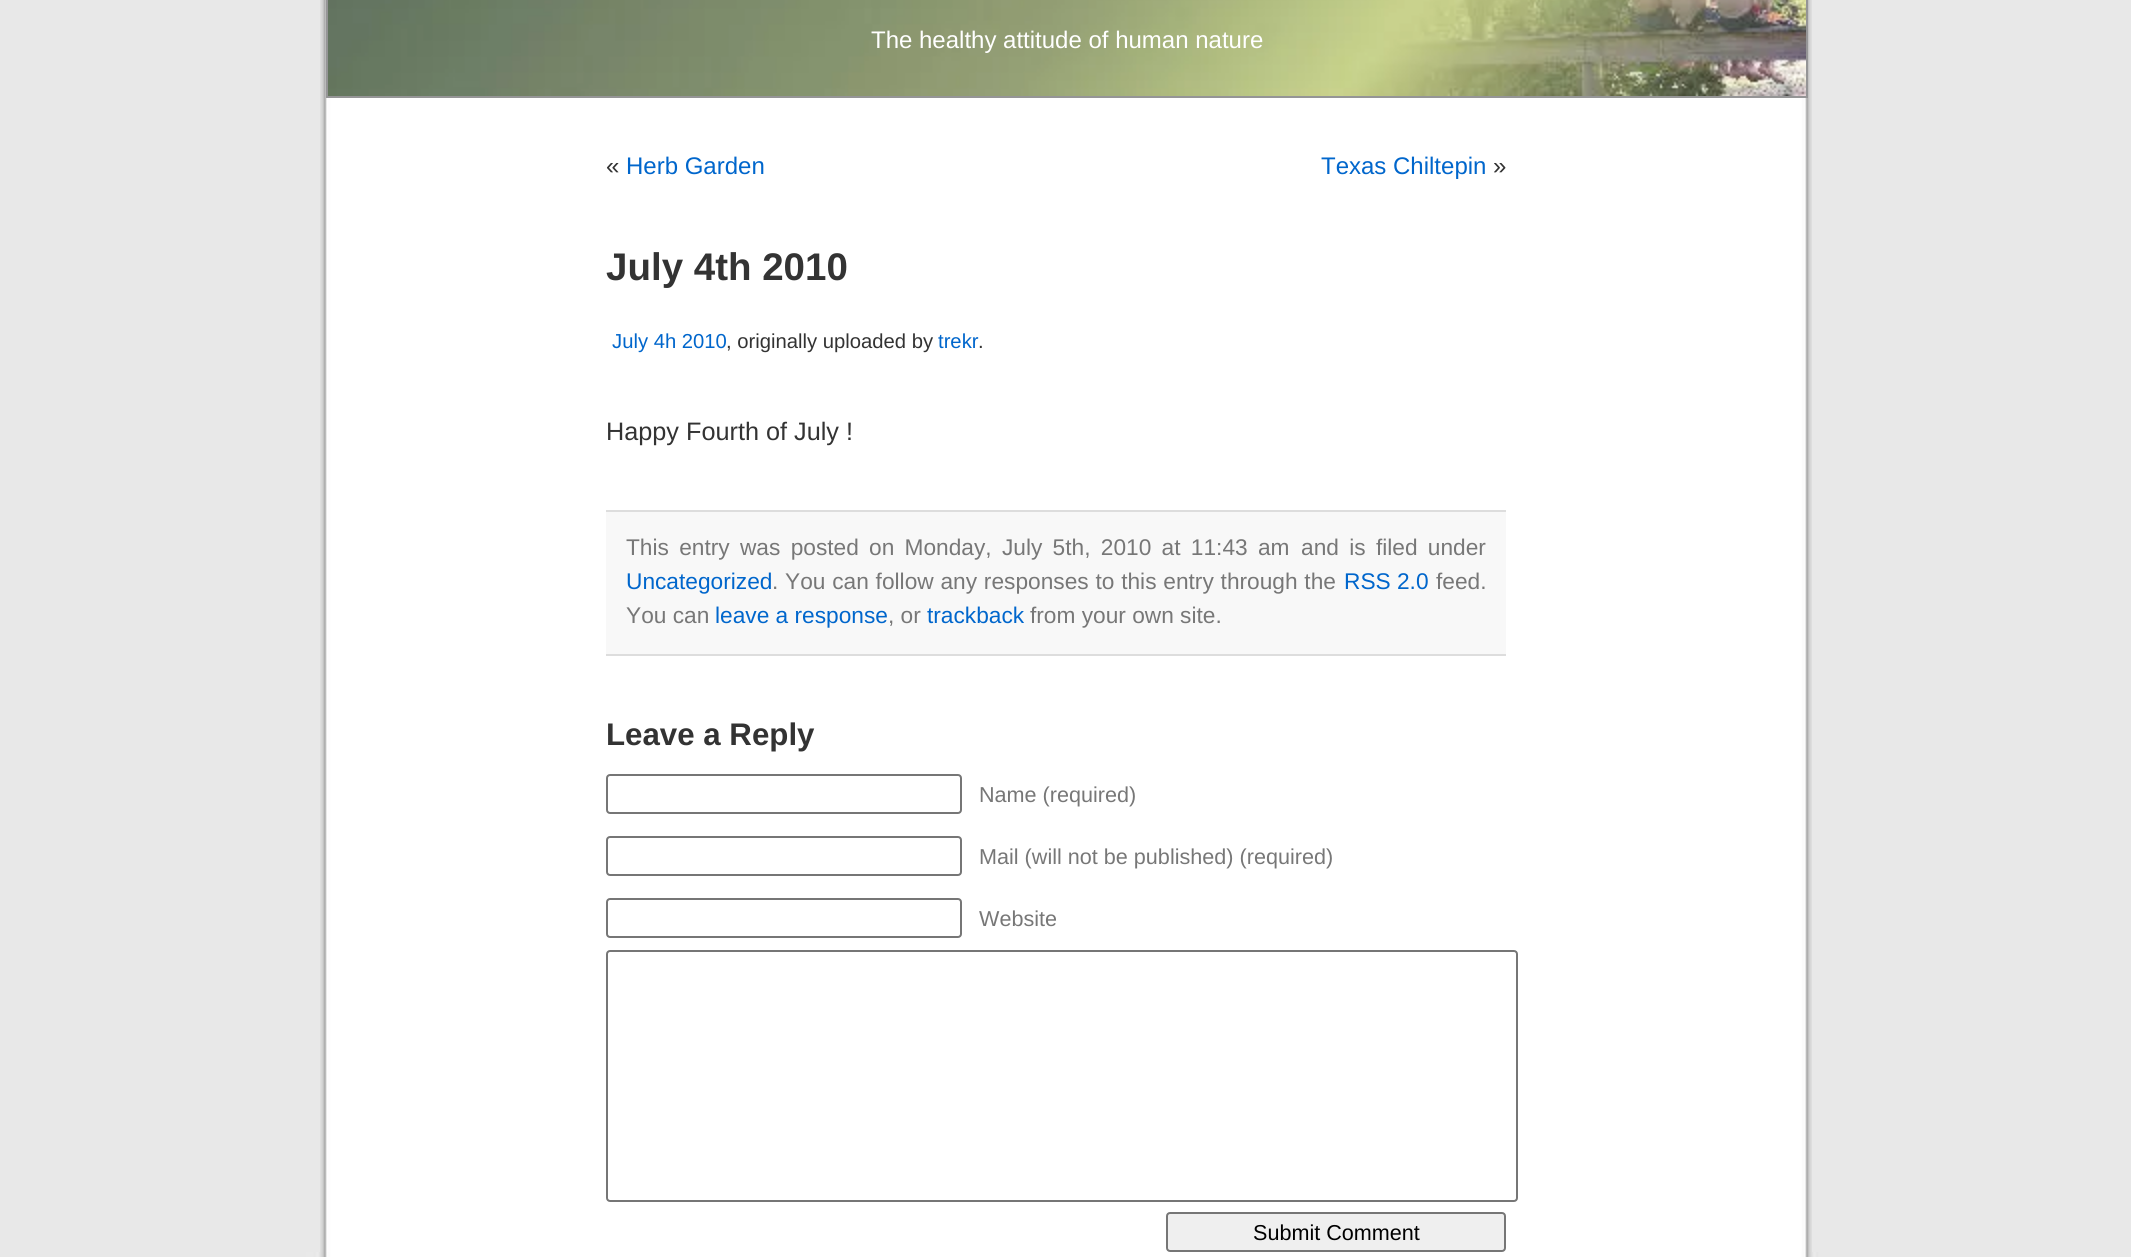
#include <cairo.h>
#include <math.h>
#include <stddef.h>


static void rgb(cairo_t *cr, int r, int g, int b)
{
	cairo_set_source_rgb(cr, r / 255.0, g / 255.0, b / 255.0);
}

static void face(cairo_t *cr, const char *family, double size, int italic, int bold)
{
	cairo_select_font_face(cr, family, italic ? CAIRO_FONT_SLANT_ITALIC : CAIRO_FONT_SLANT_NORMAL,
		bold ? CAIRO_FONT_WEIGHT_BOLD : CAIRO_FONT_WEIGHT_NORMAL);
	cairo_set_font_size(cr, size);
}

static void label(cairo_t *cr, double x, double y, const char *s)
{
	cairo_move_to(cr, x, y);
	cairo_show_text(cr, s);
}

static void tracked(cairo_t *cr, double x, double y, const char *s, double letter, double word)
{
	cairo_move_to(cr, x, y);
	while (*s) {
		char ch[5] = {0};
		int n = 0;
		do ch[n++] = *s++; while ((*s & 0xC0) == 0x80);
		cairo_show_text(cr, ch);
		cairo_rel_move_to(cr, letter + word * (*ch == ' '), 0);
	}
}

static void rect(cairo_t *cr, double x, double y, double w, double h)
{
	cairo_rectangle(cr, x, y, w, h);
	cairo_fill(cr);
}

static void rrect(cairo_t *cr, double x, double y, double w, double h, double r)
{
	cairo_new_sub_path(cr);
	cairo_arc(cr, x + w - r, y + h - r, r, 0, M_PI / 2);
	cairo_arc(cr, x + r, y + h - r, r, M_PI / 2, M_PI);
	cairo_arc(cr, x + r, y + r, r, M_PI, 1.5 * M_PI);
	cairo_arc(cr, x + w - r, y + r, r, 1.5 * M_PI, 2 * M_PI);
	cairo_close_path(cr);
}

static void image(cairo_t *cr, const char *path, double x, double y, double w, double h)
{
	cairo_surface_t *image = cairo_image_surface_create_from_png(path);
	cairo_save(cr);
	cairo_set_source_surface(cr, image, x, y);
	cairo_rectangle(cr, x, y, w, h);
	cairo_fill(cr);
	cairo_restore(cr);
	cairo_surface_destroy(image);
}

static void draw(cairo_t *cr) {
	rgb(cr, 232, 232, 232);
	cairo_paint(cr);
	image(cr, "image0.png", 320, 0, 1492, 1252);
	image(cr, "image1.png", 328, 0, 1478, 96);
	cairo_rectangle(cr, 327, -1, 1480, 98);
	rgb(cr, 149, 149, 150);
	cairo_stroke(cr);
	face(cr, "Liberation Sans", 24, 0, 0);
	rgb(cr, 255, 255, 255);
	label(cr, 871, 48, "The healthy attitude of human nature");
	rgb(cr, 51, 51, 51);
	label(cr, 606, 174, "«");
	rgb(cr, 0, 102, 204);
	label(cr, 626, 174, "Herb Garden");
	label(cr, 1321, 174, "Texas Chiltepin");
	rgb(cr, 51, 51, 51);
	label(cr, 1493, 174, "»");
	face(cr, "Liberation Sans", 38.5, 0, 1);
	label(cr, 606, 280, "July 4th 2010");
	face(cr, "Liberation Sans", 20.25, 0, 0);
	rgb(cr, 0, 102, 204);
	label(cr, 612, 348, "July 4h 2010");
	rgb(cr, 51, 51, 51);
	label(cr, 726, 348, ", originally uploaded by");
	rgb(cr, 0, 102, 204);
	label(cr, 938, 348, "trekr");
	rgb(cr, 51, 51, 51);
	label(cr, 978, 348, ".");
	face(cr, "Liberation Sans", 25.25, 0, 0);
	label(cr, 606, 440, "Happy Fourth of July !");
	rgb(cr, 248, 248, 248);
	rect(cr, 606, 512, 900, 142);
	rgb(cr, 221, 221, 221);
	rect(cr, 606, 510, 900, 2);
	rect(cr, 606, 654, 900, 2);
	face(cr, "Liberation Sans", 22.7, 0, 0);
	rgb(cr, 119, 119, 119);
	tracked(cr, 626, 555, "This entry was posted", 0, 4);
	tracked(cr, 869, 555, "on Monday, July 5th, 2010 at 11:43 am", 0, 4);
	tracked(cr, 1301, 555, "and is filed under", 0, 4);
	rgb(cr, 0, 102, 204);
	label(cr, 626, 589, "Uncategorized");
	rgb(cr, 119, 119, 119);
	label(cr, 772, 589, ".");
	tracked(cr, 785, 589, "You can follow any responses to this entry through the", 0, 0.5);
	rgb(cr, 0, 102, 204);
	label(cr, 1344, 589, "RSS 2.0");
	rgb(cr, 119, 119, 119);
	label(cr, 1436, 589, "feed.");
	label(cr, 626, 623, "You can");
	rgb(cr, 0, 102, 204);
	label(cr, 715, 623, "leave a response");
	rgb(cr, 119, 119, 119);
	label(cr, 888, 623, ", or");
	rgb(cr, 0, 102, 204);
	label(cr, 927, 623, "trackback");
	rgb(cr, 119, 119, 119);
	label(cr, 1030, 623, "from your own site.");
	face(cr, "Liberation Sans", 31.25, 0, 1);
	rgb(cr, 51, 51, 51);
	label(cr, 606, 745, "Leave a Reply");
	rrect(cr, 607, 775, 354, 38, 3);
	rgb(cr, 118, 118, 118);
	cairo_stroke(cr);
	face(cr, "Liberation Sans", 21.6, 0, 0);
	rgb(cr, 119, 119, 119);
	label(cr, 979, 802, "Name (required)");
	rrect(cr, 607, 837, 354, 38, 3);
	rgb(cr, 118, 118, 118);
	cairo_stroke(cr);
	rgb(cr, 119, 119, 119);
	label(cr, 979, 864, "Mail (will not be published) (required)");
	rrect(cr, 607, 899, 354, 38, 3);
	rgb(cr, 118, 118, 118);
	cairo_stroke(cr);
	rgb(cr, 119, 119, 119);
	label(cr, 979, 926, "Website");
	rrect(cr, 607, 951, 910, 250, 3);
	rgb(cr, 118, 118, 118);
	cairo_stroke(cr);
	rgb(cr, 239, 239, 239);
	rrect(cr, 1167, 1213, 338, 38, 3);
	cairo_fill_preserve(cr);
	rgb(cr, 118, 118, 118);
	cairo_stroke(cr);
	rgb(cr, 0, 0, 0);
	label(cr, 1253, 1240, "Submit Comment");
	image(cr, "image2.png", 306, 1252, 1520, 5);
}

int main(void) {
	cairo_surface_t *surface = cairo_image_surface_create(CAIRO_FORMAT_RGB24, 2131, 1257);
	cairo_t *cr = cairo_create(surface);
	cairo_font_options_t *options = cairo_font_options_create();
	cairo_font_options_set_hint_metrics(options, CAIRO_HINT_METRICS_OFF);
	cairo_font_options_set_hint_style(options, CAIRO_HINT_STYLE_NONE);
	cairo_set_font_options(cr, options);
	cairo_set_miter_limit(cr, 4);
	draw(cr);
	cairo_surface_write_to_png(surface, "render.png");
	cairo_font_options_destroy(options);
	cairo_destroy(cr);
	cairo_surface_destroy(surface);
	return 0;
}
